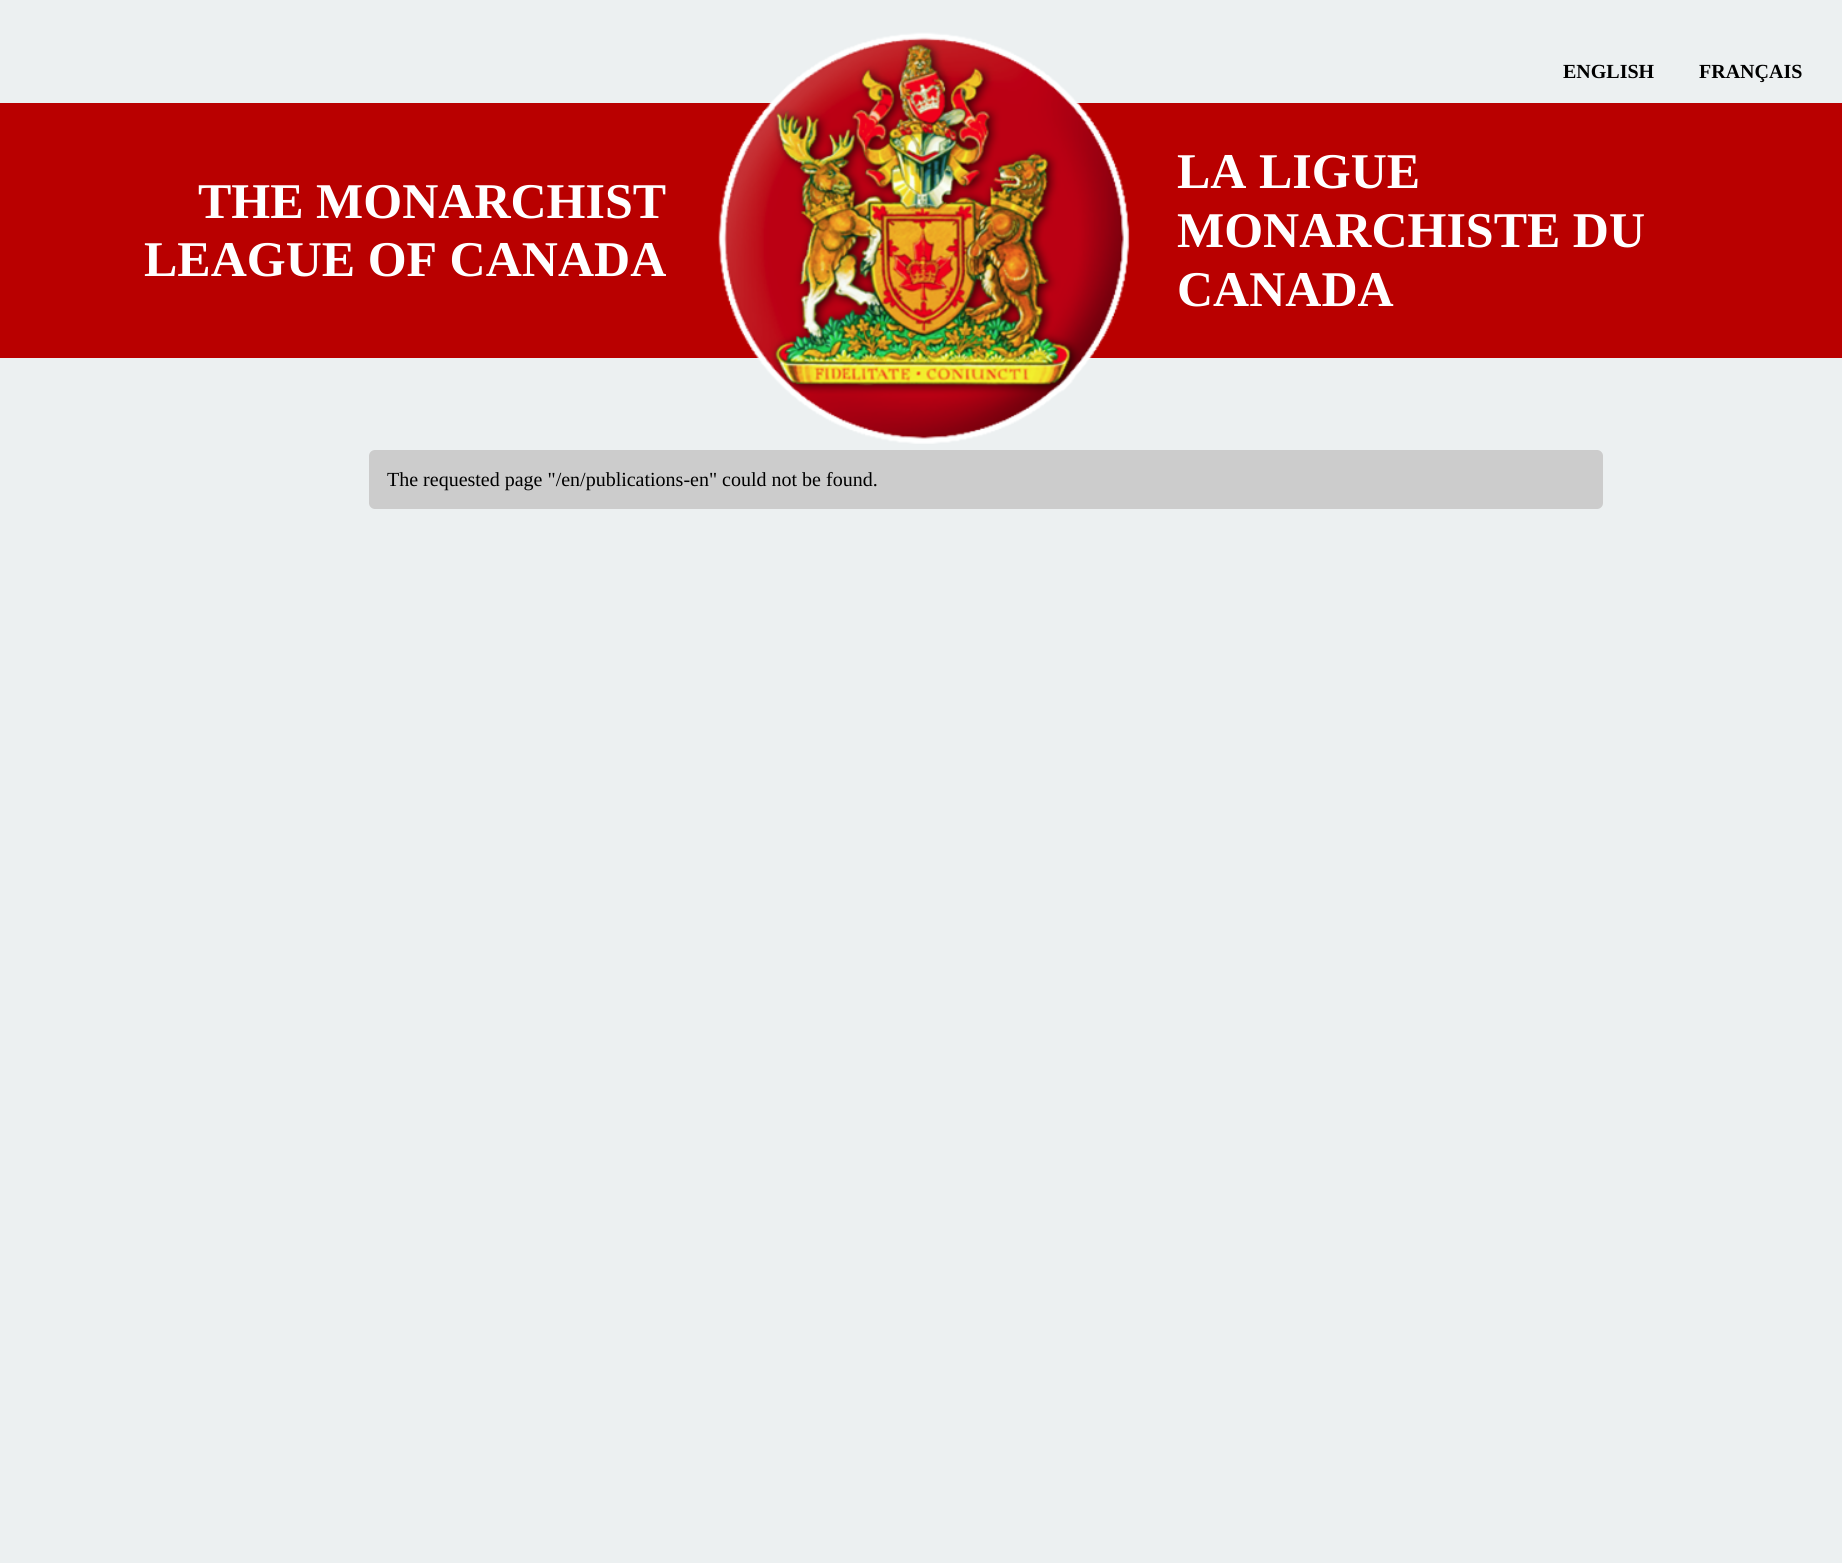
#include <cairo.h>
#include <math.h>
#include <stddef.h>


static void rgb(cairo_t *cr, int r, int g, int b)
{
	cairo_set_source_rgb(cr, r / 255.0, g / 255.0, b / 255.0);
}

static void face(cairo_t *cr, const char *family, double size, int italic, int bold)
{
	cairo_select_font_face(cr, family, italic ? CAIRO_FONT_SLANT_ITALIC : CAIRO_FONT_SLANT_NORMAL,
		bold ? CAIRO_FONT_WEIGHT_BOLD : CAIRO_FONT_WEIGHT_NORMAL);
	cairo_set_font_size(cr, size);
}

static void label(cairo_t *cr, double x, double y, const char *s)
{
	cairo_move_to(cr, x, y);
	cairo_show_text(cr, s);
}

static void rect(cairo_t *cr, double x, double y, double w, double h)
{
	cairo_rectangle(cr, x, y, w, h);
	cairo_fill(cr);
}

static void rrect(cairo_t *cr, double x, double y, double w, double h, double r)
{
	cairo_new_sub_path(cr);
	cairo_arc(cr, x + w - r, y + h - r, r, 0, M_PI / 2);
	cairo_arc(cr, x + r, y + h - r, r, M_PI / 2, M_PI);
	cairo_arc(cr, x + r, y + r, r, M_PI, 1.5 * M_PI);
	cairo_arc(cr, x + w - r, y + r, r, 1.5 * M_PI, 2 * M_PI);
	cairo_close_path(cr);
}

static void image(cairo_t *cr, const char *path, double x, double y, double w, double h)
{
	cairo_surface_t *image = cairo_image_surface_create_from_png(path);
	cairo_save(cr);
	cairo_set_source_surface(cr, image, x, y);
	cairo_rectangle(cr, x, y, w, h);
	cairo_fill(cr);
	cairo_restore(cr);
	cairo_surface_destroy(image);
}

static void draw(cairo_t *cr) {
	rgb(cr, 236, 240, 241);
	cairo_paint(cr);
	face(cr, "Liberation Serif", 20, 0, 1);
	rgb(cr, 0, 0, 0);
	label(cr, 1563, 78, "ENGLISH");
	label(cr, 1699, 78, "FRANÇAIS");
	rgb(cr, 185, 0, 0);
	rect(cr, 0, 103, 1842, 255);
	face(cr, "Liberation Serif", 50, 0, 1);
	rgb(cr, 255, 255, 255);
	label(cr, 198, 218, "THE MONARCHIST");
	label(cr, 144, 276, "LEAGUE OF CANADA");
	image(cr, "image0.png", 718, 32, 412, 412);
	label(cr, 1177, 188, "LA LIGUE");
	label(cr, 1177, 247, "MONARCHISTE DU");
	label(cr, 1177, 306, "CANADA");
	rgb(cr, 204, 204, 204);
	rrect(cr, 369, 450, 1234, 59, 6);
	cairo_fill(cr);
	face(cr, "Liberation Serif", 20, 0, 0);
	rgb(cr, 0, 0, 0);
	label(cr, 387, 486, "The requested page \"/en/publications-en\" could not be found.");
}

int main(void) {
	cairo_surface_t *surface = cairo_image_surface_create(CAIRO_FORMAT_RGB24, 1842, 1563);
	cairo_t *cr = cairo_create(surface);
	cairo_font_options_t *options = cairo_font_options_create();
	cairo_font_options_set_hint_metrics(options, CAIRO_HINT_METRICS_OFF);
	cairo_font_options_set_hint_style(options, CAIRO_HINT_STYLE_NONE);
	cairo_set_font_options(cr, options);
	cairo_set_miter_limit(cr, 4);
	draw(cr);
	cairo_surface_write_to_png(surface, "render.png");
	cairo_font_options_destroy(options);
	cairo_destroy(cr);
	cairo_surface_destroy(surface);
	return 0;
}
